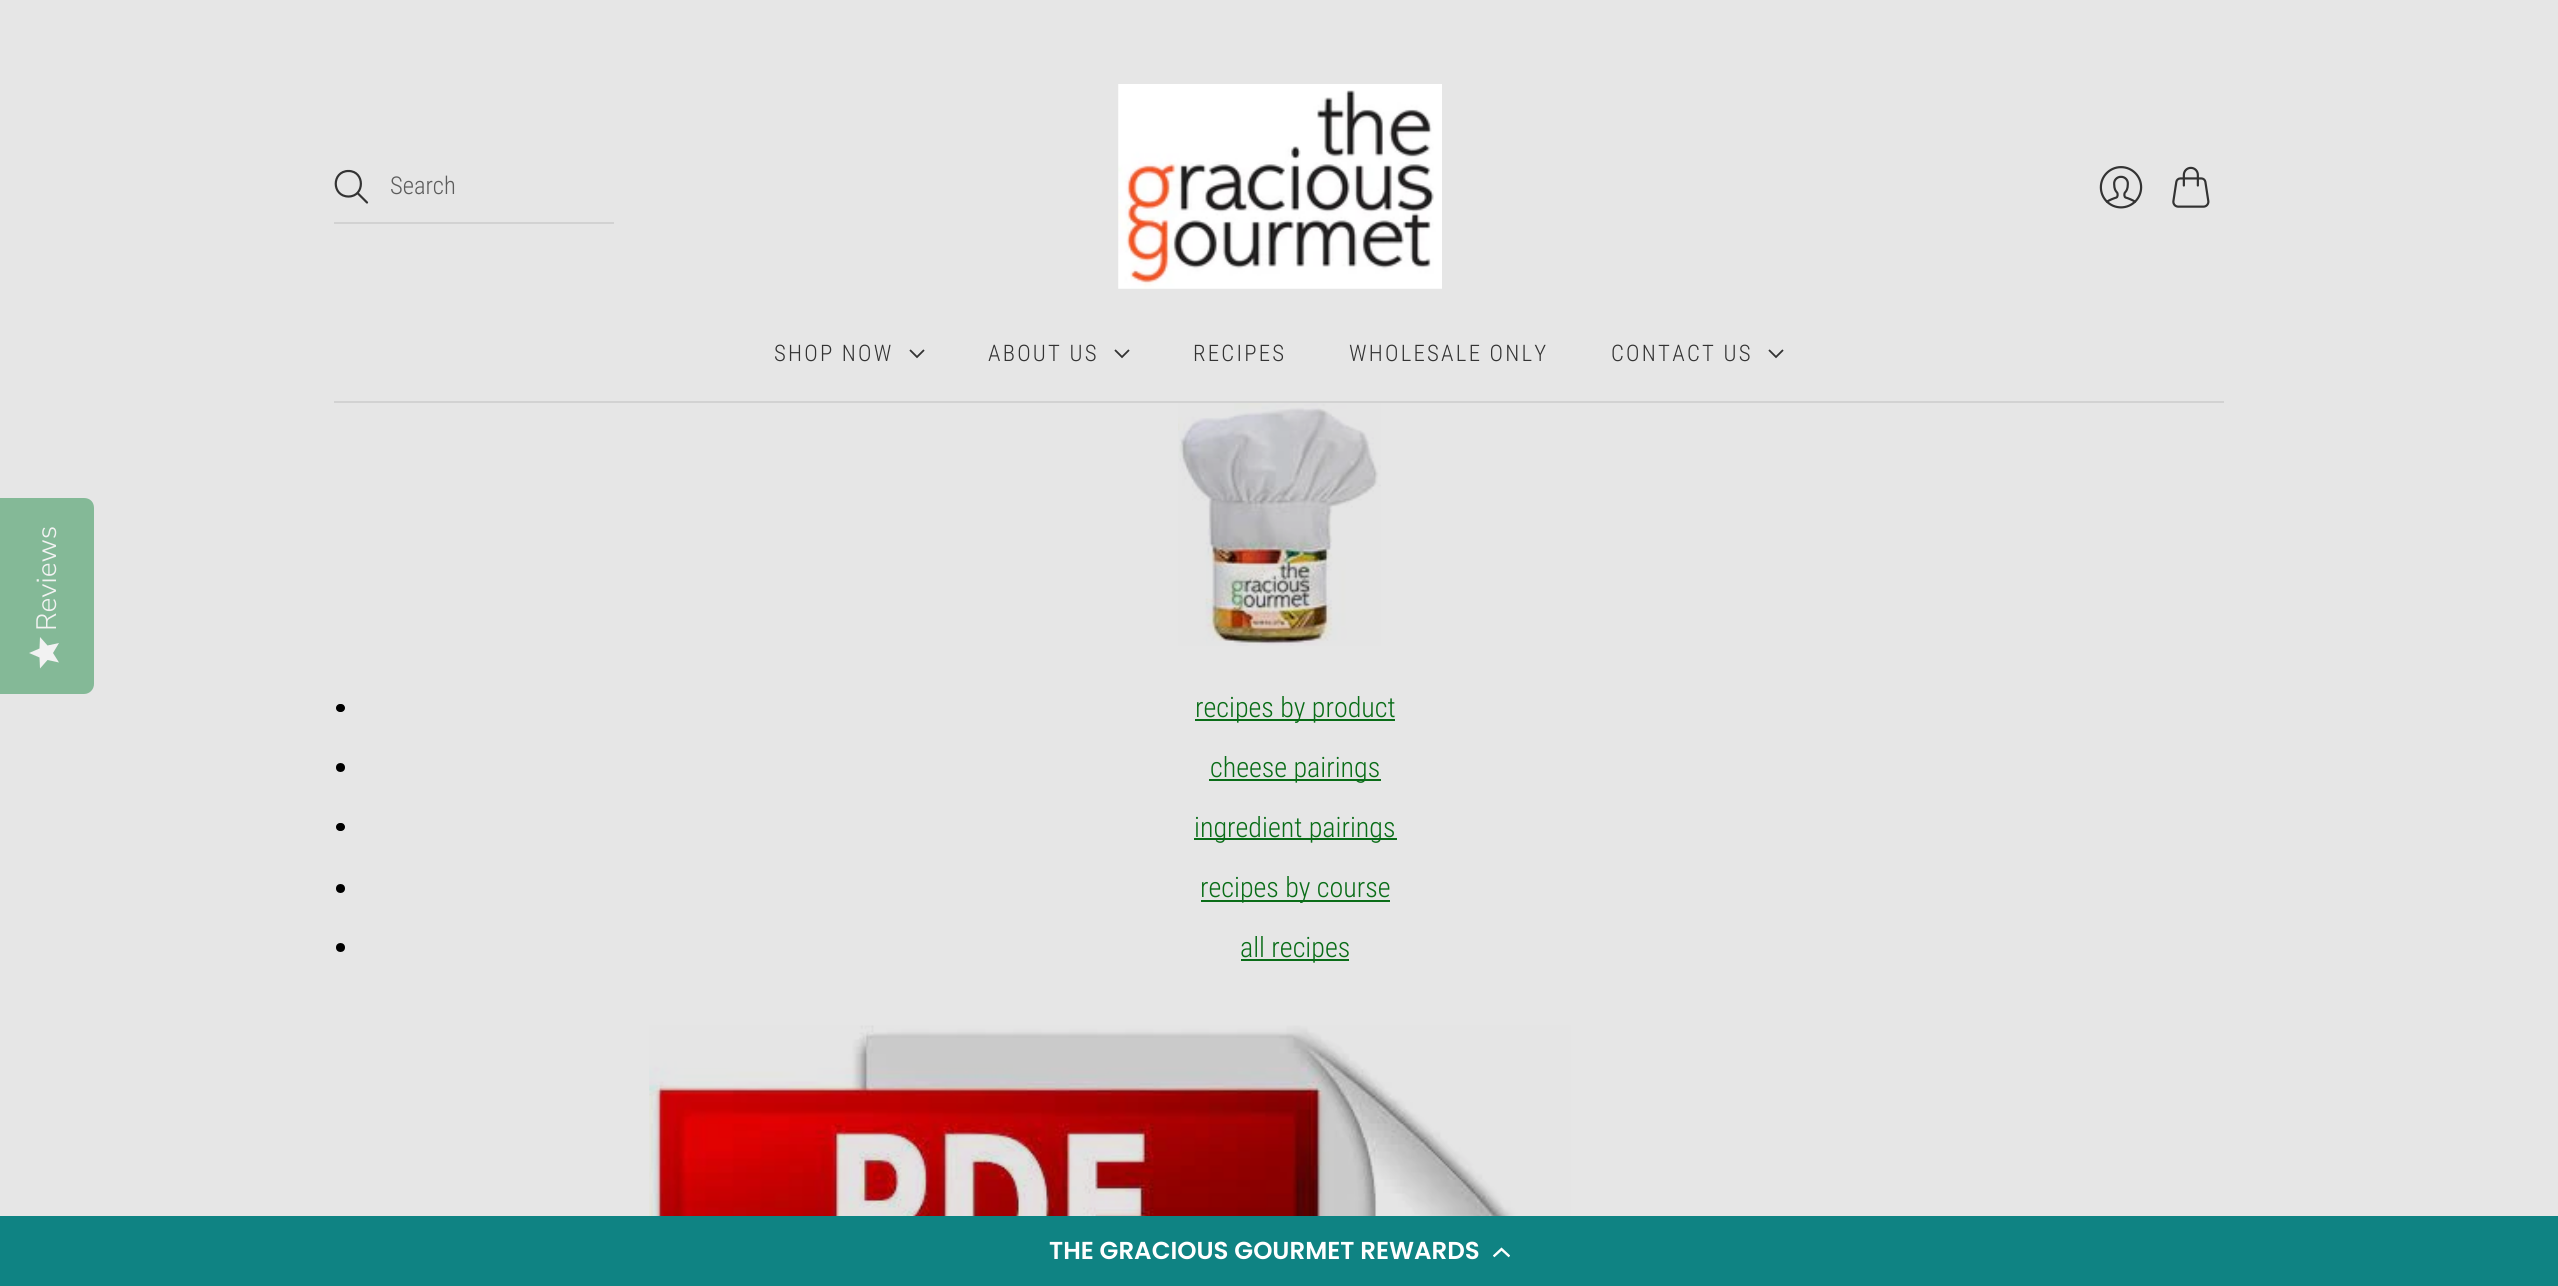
#include <cairo.h>
#include <math.h>
#include <stddef.h>


static void rgb(cairo_t *cr, int r, int g, int b)
{
	cairo_set_source_rgb(cr, r / 255.0, g / 255.0, b / 255.0);
}

static void face(cairo_t *cr, const char *family, double size, int italic, int bold)
{
	cairo_select_font_face(cr, family, italic ? CAIRO_FONT_SLANT_ITALIC : CAIRO_FONT_SLANT_NORMAL,
		bold ? CAIRO_FONT_WEIGHT_BOLD : CAIRO_FONT_WEIGHT_NORMAL);
	cairo_set_font_size(cr, size);
}

static void label(cairo_t *cr, double x, double y, const char *s)
{
	cairo_move_to(cr, x, y);
	cairo_show_text(cr, s);
}

static void tracked(cairo_t *cr, double x, double y, const char *s, double letter, double word)
{
	cairo_move_to(cr, x, y);
	while (*s) {
		char ch[5] = {0};
		int n = 0;
		do ch[n++] = *s++; while ((*s & 0xC0) == 0x80);
		cairo_show_text(cr, ch);
		cairo_rel_move_to(cr, letter + word * (*ch == ' '), 0);
	}
}

static void rect(cairo_t *cr, double x, double y, double w, double h)
{
	cairo_rectangle(cr, x, y, w, h);
	cairo_fill(cr);
}

static void rrect(cairo_t *cr, double x, double y, double w, double h, double r)
{
	cairo_new_sub_path(cr);
	cairo_arc(cr, x + w - r, y + h - r, r, 0, M_PI / 2);
	cairo_arc(cr, x + r, y + h - r, r, M_PI / 2, M_PI);
	cairo_arc(cr, x + r, y + r, r, M_PI, 1.5 * M_PI);
	cairo_arc(cr, x + w - r, y + r, r, 1.5 * M_PI, 2 * M_PI);
	cairo_close_path(cr);
}

static void image(cairo_t *cr, const char *path, double x, double y, double w, double h)
{
	cairo_surface_t *image = cairo_image_surface_create_from_png(path);
	cairo_save(cr);
	cairo_set_source_surface(cr, image, x, y);
	cairo_rectangle(cr, x, y, w, h);
	cairo_fill(cr);
	cairo_restore(cr);
	cairo_surface_destroy(image);
}

static void draw(cairo_t *cr) {
	cairo_pattern_t *gradient;
	rgb(cr, 230, 230, 230);
	cairo_paint(cr);
	cairo_new_path(cr);
	cairo_move_to(cr, 348.5, 196.5);
	cairo_curve_to(cr, 365, 196.5, 365, 171, 348.5, 171);
	cairo_curve_to(cr, 331.5, 171, 331.5, 196.5, 348.5, 196.5);
	cairo_close_path(cr);
	cairo_move_to(cr, 367, 202.5);
	cairo_line_to(cr, 358, 193.5);
	rgb(cr, 51, 51, 51);
	cairo_set_line_width(cr, 2.2);
	cairo_set_line_cap(cr, CAIRO_LINE_CAP_ROUND);
	cairo_set_line_join(cr, CAIRO_LINE_JOIN_ROUND);
	cairo_stroke(cr);
	face(cr, "Roboto Condensed Light", 24.5, 0, 0);
	rgb(cr, 92, 92, 92);
	label(cr, 390, 194, "Search");
	rgb(cr, 210, 210, 210);
	rect(cr, 334, 222, 280, 2);
	image(cr, "image0.png", 2099, 166, 44, 43);
	image(cr, "image1.png", 2172, 166, 38, 42);
	rect(cr, 334, 401, 1890, 2);
	image(cr, "image2.png", 1118, 84, 324, 205);
	face(cr, "Roboto Condensed Light", 22.75, 0, 0);
	rgb(cr, 51, 51, 51);
	tracked(cr, 774, 361, "SHOP NOW", 2.25, 0);
	cairo_new_path(cr);
	cairo_move_to(cr, 910, 350);
	cairo_line_to(cr, 917, 357);
	cairo_line_to(cr, 924, 350);
	cairo_set_line_width(cr, 1.8);
	cairo_set_line_cap(cr, CAIRO_LINE_CAP_BUTT);
	cairo_set_line_join(cr, CAIRO_LINE_JOIN_MITER);
	cairo_stroke(cr);
	tracked(cr, 988, 361, "ABOUT US", 2.25, 0);
	cairo_new_path(cr);
	cairo_move_to(cr, 1115, 350);
	cairo_line_to(cr, 1122, 357);
	cairo_line_to(cr, 1129, 350);
	cairo_stroke(cr);
	tracked(cr, 1193, 361, "RECIPES", 2.25, 0);
	tracked(cr, 1349, 361, "WHOLESALE ONLY", 2.25, 0);
	tracked(cr, 1611, 361, "CONTACT US", 2.25, 0);
	cairo_new_path(cr);
	cairo_move_to(cr, 1769, 350);
	cairo_line_to(cr, 1776, 357);
	cairo_line_to(cr, 1783, 350);
	cairo_stroke(cr);
	rgb(cr, 132, 185, 151);
	cairo_new_path(cr);
	cairo_move_to(cr, 0, 694);
	cairo_line_to(cr, 0, 498);
	cairo_line_to(cr, 84, 498);
	cairo_curve_to(cr, 90, 498, 94, 502, 94, 508);
	cairo_line_to(cr, 94, 684);
	cairo_curve_to(cr, 94, 689, 90, 694, 84, 694);
	cairo_close_path(cr);
	cairo_fill(cr);
	face(cr, "Nunito Sans Light", 28, 0, 0);
	rgb(cr, 242, 242, 242);
	cairo_save(cr);
	cairo_translate(cr, 56, 631);
	cairo_rotate(cr, -90 * M_PI / 180);
	label(cr, 0, 0, "Reviews");
	cairo_restore(cr);
	gradient = cairo_pattern_create_linear(29, 669, 29, 637);
	cairo_pattern_add_color_stop_rgba(gradient, 1, 0.949, 0.949, 0.949, 1);
	cairo_pattern_add_color_stop_rgba(gradient, 1, 0.91, 0.91, 0.91, 1);
	cairo_set_source(cr, gradient);
	cairo_pattern_destroy(gradient);
	cairo_new_path(cr);
	cairo_move_to(cr, 53, 653);
	cairo_line_to(cr, 59, 643);
	cairo_line_to(cr, 47.5, 645.5);
	cairo_line_to(cr, 40, 637);
	cairo_line_to(cr, 39.5, 648.5);
	cairo_line_to(cr, 29, 653);
	cairo_line_to(cr, 39.5, 657.5);
	cairo_line_to(cr, 40, 668.5);
	cairo_line_to(cr, 47.5, 660);
	cairo_line_to(cr, 59, 662.5);
	cairo_close_path(cr);
	cairo_fill(cr);
	image(cr, "image3.png", 1178, 403, 203, 243);
	rgb(cr, 0, 0, 0);
	rrect(cr, 336, 704, 9, 8, 4);
	cairo_fill(cr);
	rgb(cr, 10, 109, 24);
	rect(cr, 1195, 719, 200, 2);
	face(cr, "Roboto Condensed Light", 28, 0, 0);
	label(cr, 1195, 717, "recipes by product");
	rgb(cr, 0, 0, 0);
	cairo_new_path(cr);
	cairo_arc(cr, 340.5, 767.5, 4.5, 0, 2 * M_PI);
	cairo_fill(cr);
	rgb(cr, 10, 109, 24);
	rect(cr, 1209, 779, 172, 2);
	label(cr, 1210, 777, "cheese pairings");
	rgb(cr, 0, 0, 0);
	rrect(cr, 336, 823, 9, 8, 4);
	cairo_fill(cr);
	rgb(cr, 10, 109, 24);
	rect(cr, 1194, 838, 203, 2);
	label(cr, 1194, 837, "ingredient pairings");
	rgb(cr, 0, 0, 0);
	cairo_new_path(cr);
	cairo_arc(cr, 340.5, 888.5, 4.5, 0, 2 * M_PI);
	cairo_fill(cr);
	rgb(cr, 10, 109, 24);
	rect(cr, 1201, 900, 189, 2);
	label(cr, 1200, 897, "recipes by course");
	rgb(cr, 0, 0, 0);
	cairo_new_path(cr);
	cairo_arc(cr, 340.5, 947.5, 4.5, 0, 2 * M_PI);
	cairo_fill(cr);
	rgb(cr, 10, 109, 24);
	rect(cr, 1241, 959, 108, 2);
	label(cr, 1240, 957, "all recipes");
	image(cr, "image4.png", 649, 1025, 922, 191);
	rgb(cr, 15, 131, 131);
	rect(cr, 0, 1216, 2558, 70);
	face(cr, "Poppins SemiBold", 24.5, 0, 0);
	rgb(cr, 255, 255, 255);
	label(cr, 1049, 1259, "THE GRACIOUS GOURMET REWARDS");
	image(cr, "image5.png", 1493, 1247, 17, 11);
}

int main(void) {
	cairo_surface_t *surface = cairo_image_surface_create(CAIRO_FORMAT_RGB24, 2558, 1286);
	cairo_t *cr = cairo_create(surface);
	cairo_font_options_t *options = cairo_font_options_create();
	cairo_font_options_set_hint_metrics(options, CAIRO_HINT_METRICS_OFF);
	cairo_font_options_set_hint_style(options, CAIRO_HINT_STYLE_NONE);
	cairo_set_font_options(cr, options);
	cairo_set_miter_limit(cr, 4);
	draw(cr);
	cairo_surface_write_to_png(surface, "render.png");
	cairo_font_options_destroy(options);
	cairo_destroy(cr);
	cairo_surface_destroy(surface);
	return 0;
}
